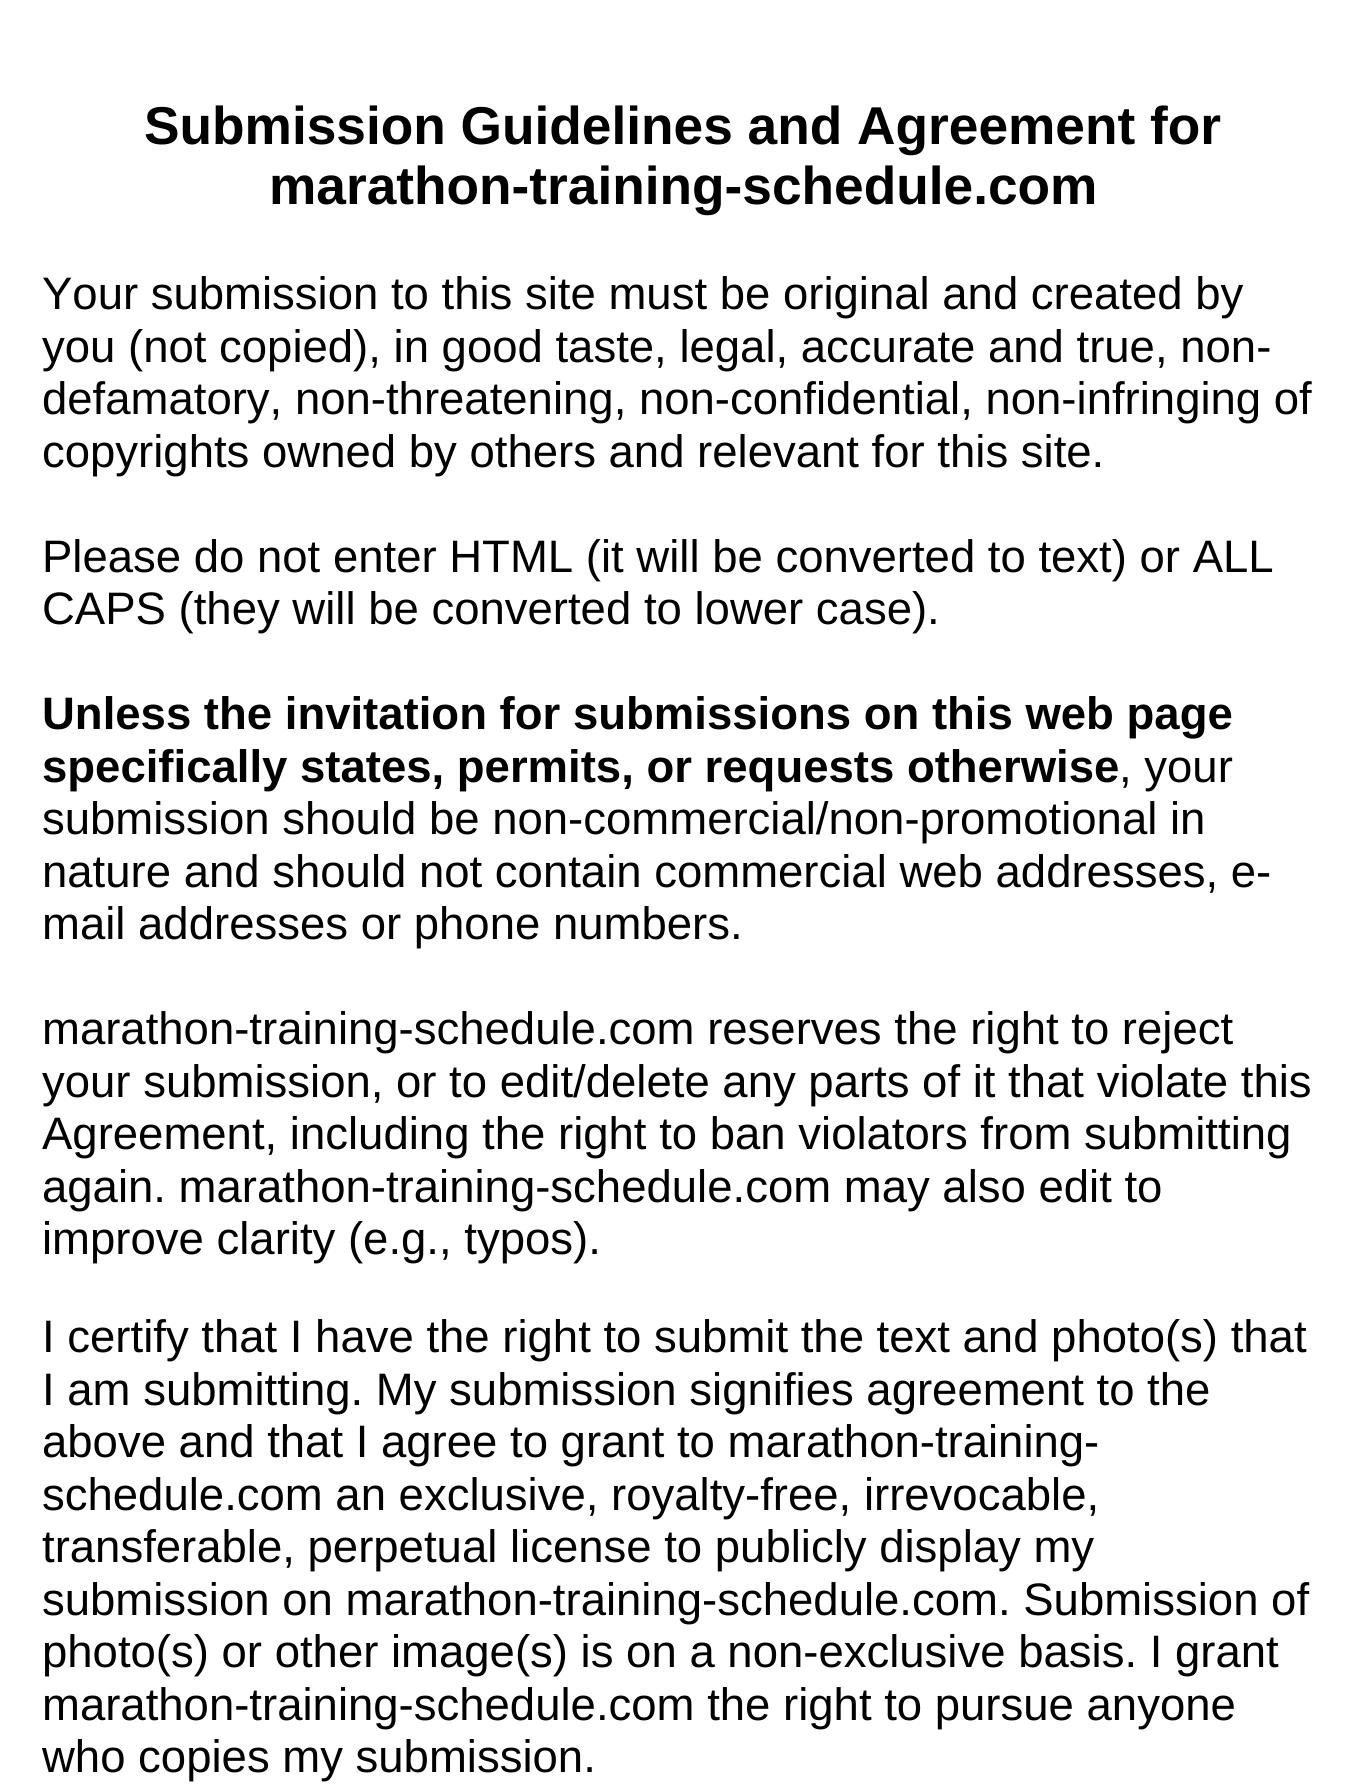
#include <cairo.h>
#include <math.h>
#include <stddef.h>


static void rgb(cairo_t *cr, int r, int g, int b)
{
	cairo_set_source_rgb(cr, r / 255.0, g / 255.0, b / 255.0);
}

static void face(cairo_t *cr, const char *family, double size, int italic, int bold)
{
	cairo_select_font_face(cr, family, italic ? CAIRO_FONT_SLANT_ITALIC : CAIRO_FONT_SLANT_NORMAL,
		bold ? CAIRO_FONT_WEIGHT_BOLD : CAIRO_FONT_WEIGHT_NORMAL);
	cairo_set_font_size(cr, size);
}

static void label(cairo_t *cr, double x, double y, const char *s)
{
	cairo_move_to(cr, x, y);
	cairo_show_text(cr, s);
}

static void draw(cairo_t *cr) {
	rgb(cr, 255, 255, 255);
	cairo_paint(cr);
	face(cr, "Liberation Sans", 53.25, 0, 1);
	rgb(cr, 0, 0, 0);
	label(cr, 144, 144, "Submission Guidelines and Agreement for");
	label(cr, 269, 204, "marathon-training-schedule.com");
	face(cr, "Liberation Sans", 45.5, 0, 0);
	label(cr, 42, 309, "Your submission to this site must be original and created by");
	label(cr, 42, 362, "you (not copied), in good taste, legal, accurate and true, non-");
	label(cr, 42, 414, "defamatory, non-threatening, non-confidential, non-infringing of");
	label(cr, 42, 467, "copyrights owned by others and relevant for this site.");
	label(cr, 42, 572, "Please do not enter HTML (it will be converted to text) or ALL");
	label(cr, 42, 624, "CAPS (they will be converted to lower case).");
	face(cr, "Liberation Sans", 45.5, 0, 1);
	label(cr, 42, 729, "Unless the invitation for submissions on this web page");
	label(cr, 42, 782, "specifically states, permits, or requests otherwise");
	face(cr, "Liberation Sans", 45.5, 0, 0);
	label(cr, 1119, 782, ", your");
	label(cr, 42, 834, "submission should be non-commercial/non-promotional in");
	label(cr, 42, 887, "nature and should not contain commercial web addresses, e-");
	label(cr, 42, 939, "mail addresses or phone numbers.");
	label(cr, 42, 1044, "marathon-training-schedule.com reserves the right to reject");
	label(cr, 42, 1097, "your submission, or to edit/delete any parts of it that violate this");
	label(cr, 42, 1149, "Agreement, including the right to ban violators from submitting");
	label(cr, 42, 1202, "again. marathon-training-schedule.com may also edit to");
	label(cr, 42, 1254, "improve clarity (e.g., typos).");
	label(cr, 42, 1352, "I certify that I have the right to submit the text and photo(s) that");
	label(cr, 42, 1405, "I am submitting. My submission signifies agreement to the");
	label(cr, 42, 1457, "above and that I agree to grant to marathon-training-");
	label(cr, 42, 1510, "schedule.com an exclusive, royalty-free, irrevocable,");
	label(cr, 42, 1562, "transferable, perpetual license to publicly display my");
	label(cr, 42, 1615, "submission on marathon-training-schedule.com. Submission of");
	label(cr, 42, 1667, "photo(s) or other image(s) is on a non-exclusive basis. I grant");
	label(cr, 42, 1720, "marathon-training-schedule.com the right to pursue anyone");
	label(cr, 42, 1772, "who copies my submission.");
}

int main(void) {
	cairo_surface_t *surface = cairo_image_surface_create(CAIRO_FORMAT_RGB24, 1365, 1789);
	cairo_t *cr = cairo_create(surface);
	cairo_font_options_t *options = cairo_font_options_create();
	cairo_font_options_set_hint_metrics(options, CAIRO_HINT_METRICS_OFF);
	cairo_font_options_set_hint_style(options, CAIRO_HINT_STYLE_NONE);
	cairo_set_font_options(cr, options);
	cairo_set_miter_limit(cr, 4);
	draw(cr);
	cairo_surface_write_to_png(surface, "render.png");
	cairo_font_options_destroy(options);
	cairo_destroy(cr);
	cairo_surface_destroy(surface);
	return 0;
}
